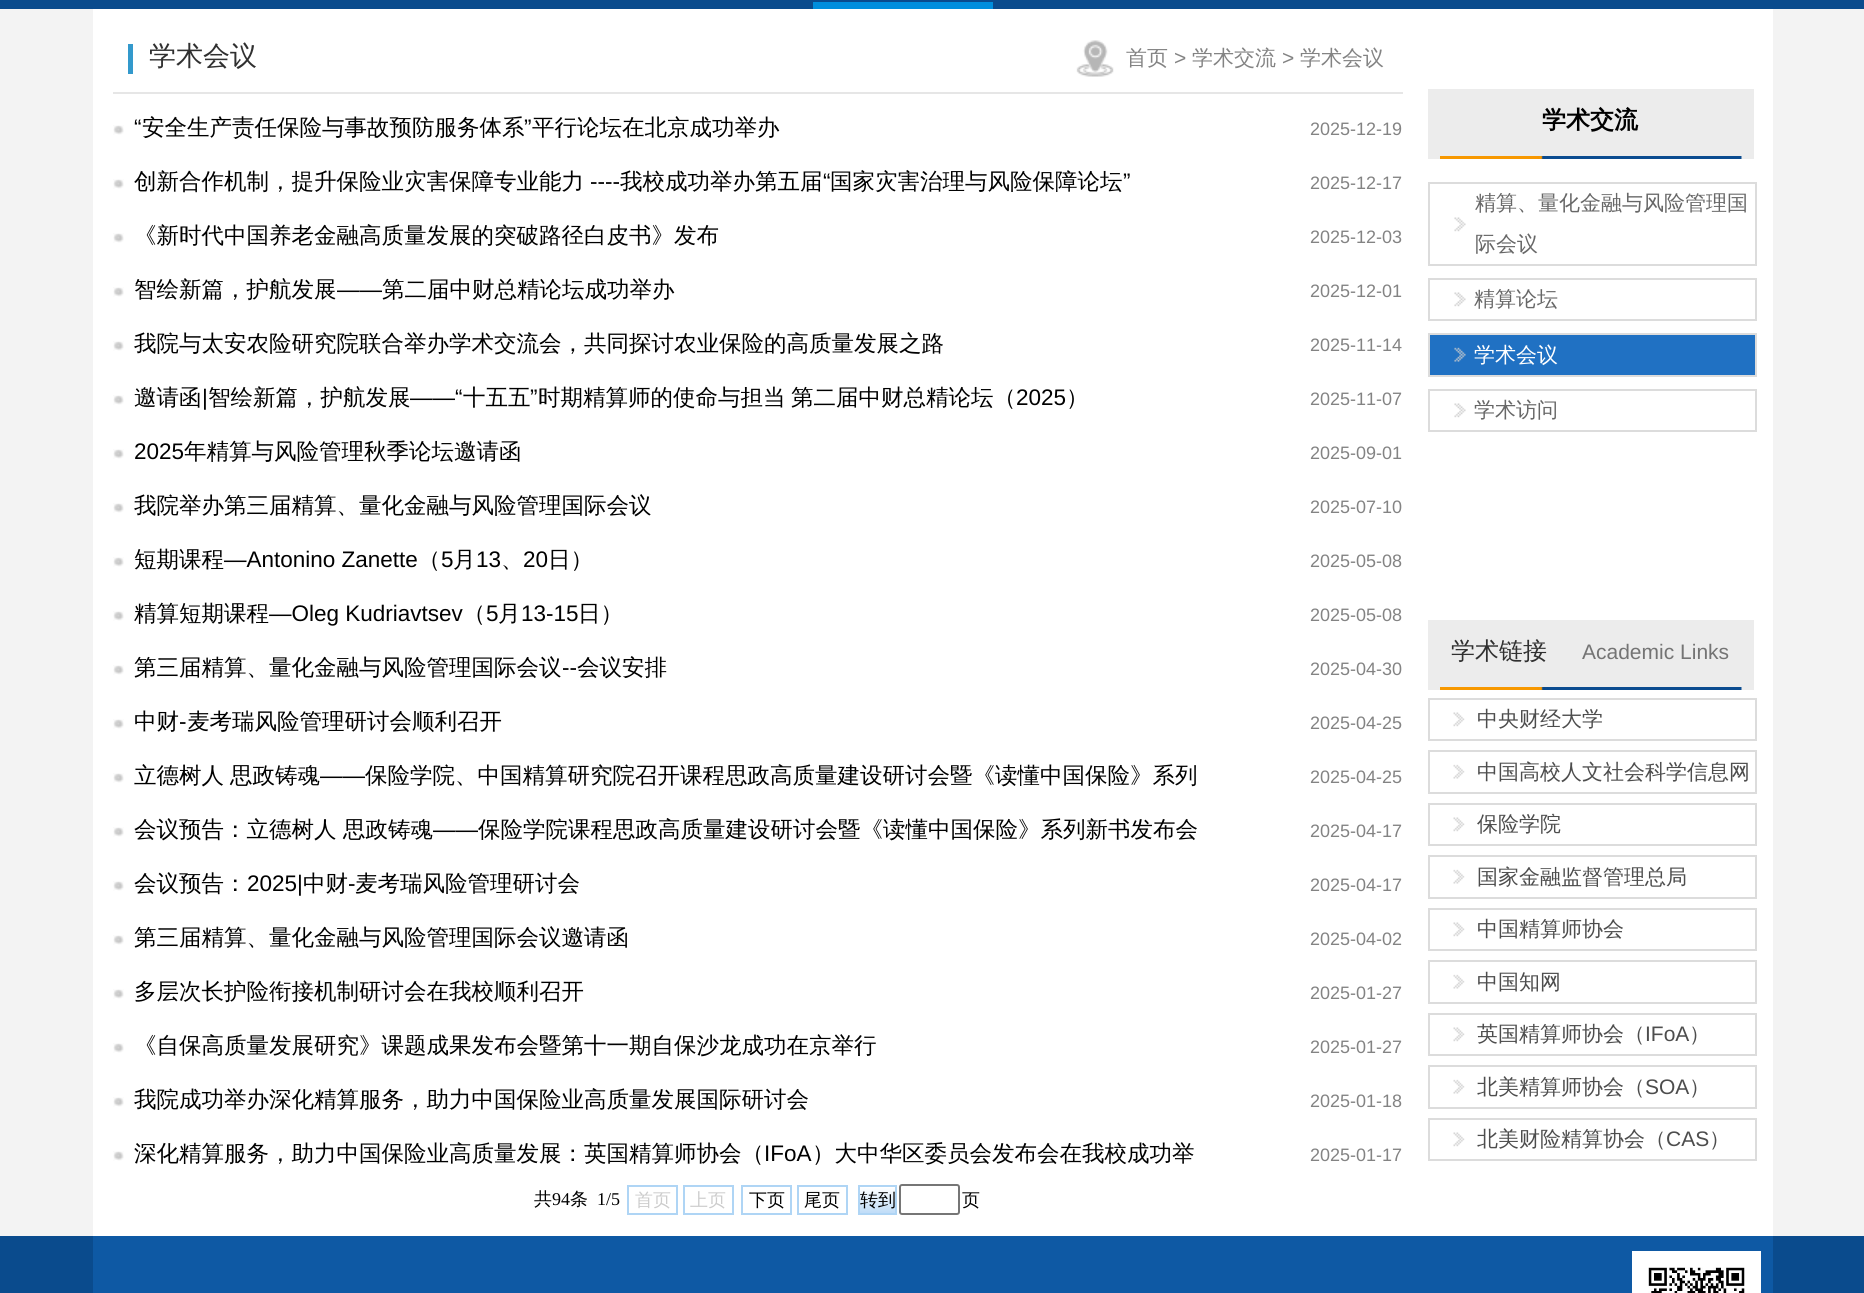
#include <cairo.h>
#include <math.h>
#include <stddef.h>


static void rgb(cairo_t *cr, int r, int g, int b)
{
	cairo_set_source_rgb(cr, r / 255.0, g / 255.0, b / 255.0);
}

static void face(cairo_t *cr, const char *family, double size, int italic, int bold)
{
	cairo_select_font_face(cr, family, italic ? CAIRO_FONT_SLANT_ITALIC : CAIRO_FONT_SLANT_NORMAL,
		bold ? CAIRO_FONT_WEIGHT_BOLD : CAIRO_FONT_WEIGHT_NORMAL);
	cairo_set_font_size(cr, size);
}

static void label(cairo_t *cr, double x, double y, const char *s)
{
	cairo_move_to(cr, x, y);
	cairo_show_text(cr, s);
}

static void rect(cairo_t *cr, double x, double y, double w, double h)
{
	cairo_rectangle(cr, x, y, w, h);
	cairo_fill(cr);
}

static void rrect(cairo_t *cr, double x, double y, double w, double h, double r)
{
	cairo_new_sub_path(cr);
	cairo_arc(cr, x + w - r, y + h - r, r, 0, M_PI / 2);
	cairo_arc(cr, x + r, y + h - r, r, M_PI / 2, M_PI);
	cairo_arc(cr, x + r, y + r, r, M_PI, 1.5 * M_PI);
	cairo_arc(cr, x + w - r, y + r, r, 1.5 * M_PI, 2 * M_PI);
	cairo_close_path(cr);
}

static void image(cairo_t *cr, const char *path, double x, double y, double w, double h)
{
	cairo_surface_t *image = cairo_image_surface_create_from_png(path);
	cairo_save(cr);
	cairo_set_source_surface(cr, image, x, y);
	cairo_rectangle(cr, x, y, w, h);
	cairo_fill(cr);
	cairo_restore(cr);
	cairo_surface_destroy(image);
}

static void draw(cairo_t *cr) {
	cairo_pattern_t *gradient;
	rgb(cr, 243, 243, 243);
	cairo_paint(cr);
	rgb(cr, 10, 75, 141);
	rect(cr, 0, 0, 1864, 9);
	rgb(cr, 0, 142, 221);
	rect(cr, 813, 2, 180, 7);
	rgb(cr, 255, 255, 255);
	rect(cr, 93, 9, 1680, 1227);
	rgb(cr, 230, 230, 230);
	rect(cr, 113, 92, 1290, 2);
	rgb(cr, 51, 153, 204);
	rect(cr, 128, 44, 5, 30);
	face(cr, "WenQuanYi Zen Hei Medium", 27, 0, 0);
	rgb(cr, 48, 48, 48);
	label(cr, 149, 65, "学术会议");
	image(cr, "image0.png", 1076, 40, 38, 37);
	face(cr, "WenQuanYi Zen Hei Medium", 21, 0, 0);
	rgb(cr, 131, 131, 131);
	label(cr, 1126, 65, "首页");
	face(cr, "Liberation Sans", 21, 0, 0);
	label(cr, 1174, 65, ">");
	face(cr, "WenQuanYi Zen Hei Medium", 21, 0, 0);
	label(cr, 1192, 65, "学术交流");
	face(cr, "Liberation Sans", 21, 0, 0);
	label(cr, 1282, 65, ">");
	face(cr, "WenQuanYi Zen Hei Medium", 21, 0, 0);
	label(cr, 1300, 65, "学术会议");
	image(cr, "image1.png", 113, 125, 11, 10);
	face(cr, "Liberation Sans", 22.5, 0, 0);
	rgb(cr, 0, 0, 0);
	label(cr, 134, 135, "“");
	face(cr, "WenQuanYi Zen Hei Medium", 22.5, 0, 0);
	label(cr, 142, 135, "安全生产责任保险与事故预防服务体系");
	face(cr, "Liberation Sans", 22.5, 0, 0);
	label(cr, 524, 135, "”");
	face(cr, "WenQuanYi Zen Hei Medium", 22.5, 0, 0);
	label(cr, 532, 135, "平行论坛在北京成功举办");
	face(cr, "Liberation Sans", 18, 0, 0);
	rgb(cr, 131, 131, 131);
	label(cr, 1310, 135, "2025-12-19");
	image(cr, "image1.png", 113, 179, 11, 10);
	face(cr, "WenQuanYi Zen Hei Medium", 22.5, 0, 0);
	rgb(cr, 0, 0, 0);
	label(cr, 134, 189, "创新合作机制，提升保险业灾害保障专业能力");
	label(cr, 620, 189, "我校成功举办第五届");
	face(cr, "Liberation Sans", 22.5, 0, 0);
	label(cr, 823, 189, "“");
	face(cr, "WenQuanYi Zen Hei Medium", 22.5, 0, 0);
	label(cr, 830, 189, "国家灾害治理与风险保障论坛");
	face(cr, "Liberation Sans", 22.5, 0, 0);
	label(cr, 1123, 189, "”");
	label(cr, 590, 189, "----");
	face(cr, "Liberation Sans", 18, 0, 0);
	rgb(cr, 131, 131, 131);
	label(cr, 1310, 189, "2025-12-17");
	image(cr, "image1.png", 113, 233, 11, 10);
	face(cr, "WenQuanYi Zen Hei Medium", 22.5, 0, 0);
	rgb(cr, 0, 0, 0);
	label(cr, 134, 243, "《新时代中国养老金融高质量发展的突破路径白皮书》发布");
	face(cr, "Liberation Sans", 18, 0, 0);
	rgb(cr, 131, 131, 131);
	label(cr, 1310, 243, "2025-12-03");
	image(cr, "image1.png", 113, 287, 11, 10);
	face(cr, "WenQuanYi Zen Hei Medium", 22.5, 0, 0);
	rgb(cr, 0, 0, 0);
	label(cr, 134, 297, "智绘新篇，护航发展");
	face(cr, "Liberation Sans", 22.5, 0, 0);
	label(cr, 337, 297, "——");
	face(cr, "WenQuanYi Zen Hei Medium", 22.5, 0, 0);
	label(cr, 382, 297, "第二届中财总精论坛成功举办");
	face(cr, "Liberation Sans", 18, 0, 0);
	rgb(cr, 131, 131, 131);
	label(cr, 1310, 297, "2025-12-01");
	image(cr, "image1.png", 113, 341, 11, 10);
	face(cr, "WenQuanYi Zen Hei Medium", 22.5, 0, 0);
	rgb(cr, 0, 0, 0);
	label(cr, 134, 351, "我院与太安农险研究院联合举办学术交流会，共同探讨农业保险的高质量发展之路");
	face(cr, "Liberation Sans", 18, 0, 0);
	rgb(cr, 131, 131, 131);
	label(cr, 1310, 351, "2025-11-14");
	image(cr, "image1.png", 113, 395, 11, 10);
	face(cr, "WenQuanYi Zen Hei Medium", 22.5, 0, 0);
	rgb(cr, 0, 0, 0);
	label(cr, 134, 405, "邀请函");
	face(cr, "Liberation Sans", 22.5, 0, 0);
	label(cr, 202, 405, "|");
	face(cr, "WenQuanYi Zen Hei Medium", 22.5, 0, 0);
	label(cr, 208, 405, "智绘新篇，护航发展");
	face(cr, "Liberation Sans", 22.5, 0, 0);
	label(cr, 410, 405, "——“");
	face(cr, "WenQuanYi Zen Hei Medium", 22.5, 0, 0);
	label(cr, 463, 405, "十五五");
	face(cr, "Liberation Sans", 22.5, 0, 0);
	label(cr, 530, 405, "”");
	face(cr, "WenQuanYi Zen Hei Medium", 22.5, 0, 0);
	label(cr, 538, 405, "时期精算师的使命与担当");
	label(cr, 791, 405, "第二届中财总精论坛（");
	face(cr, "Liberation Sans", 22.5, 0, 0);
	label(cr, 1016, 405, "2025");
	face(cr, "WenQuanYi Zen Hei Medium", 22.5, 0, 0);
	label(cr, 1066, 405, "）");
	face(cr, "Liberation Sans", 18, 0, 0);
	rgb(cr, 131, 131, 131);
	label(cr, 1310, 405, "2025-11-07");
	image(cr, "image1.png", 113, 449, 11, 10);
	face(cr, "Liberation Sans", 22.5, 0, 0);
	rgb(cr, 0, 0, 0);
	label(cr, 134, 459, "2025");
	face(cr, "WenQuanYi Zen Hei Medium", 22.5, 0, 0);
	label(cr, 184, 459, "年精算与风险管理秋季论坛邀请函");
	face(cr, "Liberation Sans", 18, 0, 0);
	rgb(cr, 131, 131, 131);
	label(cr, 1310, 459, "2025-09-01");
	image(cr, "image1.png", 113, 503, 11, 10);
	face(cr, "WenQuanYi Zen Hei Medium", 22.5, 0, 0);
	rgb(cr, 0, 0, 0);
	label(cr, 134, 513, "我院举办第三届精算、量化金融与风险管理国际会议");
	face(cr, "Liberation Sans", 18, 0, 0);
	rgb(cr, 131, 131, 131);
	label(cr, 1310, 513, "2025-07-10");
	image(cr, "image1.png", 113, 557, 11, 10);
	face(cr, "WenQuanYi Zen Hei Medium", 22.5, 0, 0);
	rgb(cr, 0, 0, 0);
	label(cr, 134, 567, "短期课程");
	face(cr, "Liberation Sans", 22.5, 0, 0);
	label(cr, 224, 567, "—Antonino Zanette");
	face(cr, "WenQuanYi Zen Hei Medium", 22.5, 0, 0);
	label(cr, 418, 567, "（");
	face(cr, "Liberation Sans", 22.5, 0, 0);
	label(cr, 441, 567, "5");
	face(cr, "WenQuanYi Zen Hei Medium", 22.5, 0, 0);
	label(cr, 453, 567, "月");
	face(cr, "Liberation Sans", 22.5, 0, 0);
	label(cr, 476, 567, "13");
	face(cr, "WenQuanYi Zen Hei Medium", 22.5, 0, 0);
	label(cr, 501, 567, "、");
	face(cr, "Liberation Sans", 22.5, 0, 0);
	label(cr, 523, 567, "20");
	face(cr, "WenQuanYi Zen Hei Medium", 22.5, 0, 0);
	label(cr, 548, 567, "日）");
	face(cr, "Liberation Sans", 18, 0, 0);
	rgb(cr, 131, 131, 131);
	label(cr, 1310, 567, "2025-05-08");
	image(cr, "image1.png", 113, 611, 11, 10);
	face(cr, "WenQuanYi Zen Hei Medium", 22.5, 0, 0);
	rgb(cr, 0, 0, 0);
	label(cr, 134, 621, "精算短期课程");
	face(cr, "Liberation Sans", 22.5, 0, 0);
	label(cr, 269, 621, "—Oleg Kudriavtsev");
	face(cr, "WenQuanYi Zen Hei Medium", 22.5, 0, 0);
	label(cr, 463, 621, "（");
	face(cr, "Liberation Sans", 22.5, 0, 0);
	label(cr, 486, 621, "5");
	face(cr, "WenQuanYi Zen Hei Medium", 22.5, 0, 0);
	label(cr, 498, 621, "月");
	face(cr, "Liberation Sans", 22.5, 0, 0);
	label(cr, 521, 621, "13-15");
	face(cr, "WenQuanYi Zen Hei Medium", 22.5, 0, 0);
	label(cr, 578, 621, "日）");
	face(cr, "Liberation Sans", 18, 0, 0);
	rgb(cr, 131, 131, 131);
	label(cr, 1310, 621, "2025-05-08");
	image(cr, "image1.png", 113, 665, 11, 10);
	face(cr, "WenQuanYi Zen Hei Medium", 22.5, 0, 0);
	rgb(cr, 0, 0, 0);
	label(cr, 134, 675, "第三届精算、量化金融与风险管理国际会议");
	face(cr, "Liberation Sans", 22.5, 0, 0);
	label(cr, 562, 675, "--");
	face(cr, "WenQuanYi Zen Hei Medium", 22.5, 0, 0);
	label(cr, 577, 675, "会议安排");
	face(cr, "Liberation Sans", 18, 0, 0);
	rgb(cr, 131, 131, 131);
	label(cr, 1310, 675, "2025-04-30");
	image(cr, "image1.png", 113, 719, 11, 10);
	face(cr, "WenQuanYi Zen Hei Medium", 22.5, 0, 0);
	rgb(cr, 0, 0, 0);
	label(cr, 134, 729, "中财");
	face(cr, "Liberation Sans", 22.5, 0, 0);
	label(cr, 179, 729, "-");
	face(cr, "WenQuanYi Zen Hei Medium", 22.5, 0, 0);
	label(cr, 187, 729, "麦考瑞风险管理研讨会顺利召开");
	face(cr, "Liberation Sans", 18, 0, 0);
	rgb(cr, 131, 131, 131);
	label(cr, 1310, 729, "2025-04-25");
	image(cr, "image1.png", 113, 773, 11, 10);
	face(cr, "WenQuanYi Zen Hei Medium", 22.5, 0, 0);
	rgb(cr, 0, 0, 0);
	label(cr, 134, 783, "立德树人");
	label(cr, 230, 783, "思政铸魂");
	face(cr, "Liberation Sans", 22.5, 0, 0);
	label(cr, 320, 783, "——");
	face(cr, "WenQuanYi Zen Hei Medium", 22.5, 0, 0);
	label(cr, 365, 783, "保险学院、中国精算研究院召开课程思政高质量建设研讨会暨《读懂中国保险》系列");
	face(cr, "Liberation Sans", 18, 0, 0);
	rgb(cr, 131, 131, 131);
	label(cr, 1310, 783, "2025-04-25");
	image(cr, "image1.png", 113, 827, 11, 10);
	face(cr, "WenQuanYi Zen Hei Medium", 22.5, 0, 0);
	rgb(cr, 0, 0, 0);
	label(cr, 134, 837, "会议预告：立德树人");
	label(cr, 343, 837, "思政铸魂");
	face(cr, "Liberation Sans", 22.5, 0, 0);
	label(cr, 433, 837, "——");
	face(cr, "WenQuanYi Zen Hei Medium", 22.5, 0, 0);
	label(cr, 478, 837, "保险学院课程思政高质量建设研讨会暨《读懂中国保险》系列新书发布会");
	face(cr, "Liberation Sans", 18, 0, 0);
	rgb(cr, 131, 131, 131);
	label(cr, 1310, 837, "2025-04-17");
	image(cr, "image1.png", 113, 881, 11, 10);
	face(cr, "WenQuanYi Zen Hei Medium", 22.5, 0, 0);
	rgb(cr, 0, 0, 0);
	label(cr, 134, 891, "会议预告：");
	face(cr, "Liberation Sans", 22.5, 0, 0);
	label(cr, 247, 891, "2025|");
	face(cr, "WenQuanYi Zen Hei Medium", 22.5, 0, 0);
	label(cr, 303, 891, "中财");
	face(cr, "Liberation Sans", 22.5, 0, 0);
	label(cr, 348, 891, "-");
	face(cr, "WenQuanYi Zen Hei Medium", 22.5, 0, 0);
	label(cr, 355, 891, "麦考瑞风险管理研讨会");
	face(cr, "Liberation Sans", 18, 0, 0);
	rgb(cr, 131, 131, 131);
	label(cr, 1310, 891, "2025-04-17");
	image(cr, "image1.png", 113, 935, 11, 10);
	face(cr, "WenQuanYi Zen Hei Medium", 22.5, 0, 0);
	rgb(cr, 0, 0, 0);
	label(cr, 134, 945, "第三届精算、量化金融与风险管理国际会议邀请函");
	face(cr, "Liberation Sans", 18, 0, 0);
	rgb(cr, 131, 131, 131);
	label(cr, 1310, 945, "2025-04-02");
	image(cr, "image1.png", 113, 989, 11, 10);
	face(cr, "WenQuanYi Zen Hei Medium", 22.5, 0, 0);
	rgb(cr, 0, 0, 0);
	label(cr, 134, 999, "多层次长护险衔接机制研讨会在我校顺利召开");
	face(cr, "Liberation Sans", 18, 0, 0);
	rgb(cr, 131, 131, 131);
	label(cr, 1310, 999, "2025-01-27");
	image(cr, "image1.png", 113, 1043, 11, 10);
	face(cr, "WenQuanYi Zen Hei Medium", 22.5, 0, 0);
	rgb(cr, 0, 0, 0);
	label(cr, 134, 1053, "《自保高质量发展研究》课题成果发布会暨第十一期自保沙龙成功在京举行");
	face(cr, "Liberation Sans", 18, 0, 0);
	rgb(cr, 131, 131, 131);
	label(cr, 1310, 1053, "2025-01-27");
	image(cr, "image1.png", 113, 1097, 11, 10);
	face(cr, "WenQuanYi Zen Hei Medium", 22.5, 0, 0);
	rgb(cr, 0, 0, 0);
	label(cr, 134, 1107, "我院成功举办深化精算服务，助力中国保险业高质量发展国际研讨会");
	face(cr, "Liberation Sans", 18, 0, 0);
	rgb(cr, 131, 131, 131);
	label(cr, 1310, 1107, "2025-01-18");
	image(cr, "image1.png", 113, 1151, 11, 10);
	face(cr, "WenQuanYi Zen Hei Medium", 22.5, 0, 0);
	rgb(cr, 0, 0, 0);
	label(cr, 134, 1161, "深化精算服务，助力中国保险业高质量发展：英国精算师协会（");
	face(cr, "Liberation Sans", 22.5, 0, 0);
	label(cr, 764, 1161, "IFoA");
	face(cr, "WenQuanYi Zen Hei Medium", 22.5, 0, 0);
	label(cr, 812, 1161, "）大中华区委员会发布会在我校成功举");
	face(cr, "Liberation Sans", 18, 0, 0);
	rgb(cr, 131, 131, 131);
	label(cr, 1310, 1161, "2025-01-17");
	face(cr, "WenQuanYi Zen Hei Medium", 18, 0, 0);
	rgb(cr, 0, 0, 0);
	label(cr, 534, 1205, "共");
	face(cr, "Liberation Serif", 18, 0, 0);
	label(cr, 552, 1205, "94");
	face(cr, "WenQuanYi Zen Hei Medium", 18, 0, 0);
	label(cr, 570, 1205, "条");
	face(cr, "Liberation Serif", 18, 0, 0);
	label(cr, 597, 1205, "1/5");
	cairo_rectangle(cr, 628, 1186, 49, 28);
	rgb(cr, 175, 213, 245);
	cairo_stroke(cr);
	face(cr, "WenQuanYi Zen Hei Medium", 18, 0, 0);
	rgb(cr, 204, 204, 204);
	label(cr, 635, 1206, "首页");
	cairo_rectangle(cr, 684, 1186, 49, 28);
	rgb(cr, 175, 213, 245);
	cairo_stroke(cr);
	rgb(cr, 204, 204, 204);
	label(cr, 690, 1206, "上页");
	cairo_rectangle(cr, 742, 1186, 49, 28);
	rgb(cr, 175, 213, 245);
	cairo_stroke(cr);
	rgb(cr, 0, 0, 0);
	label(cr, 749, 1206, "下页");
	cairo_rectangle(cr, 798, 1186, 49, 28);
	rgb(cr, 175, 213, 245);
	cairo_stroke(cr);
	rgb(cr, 0, 0, 0);
	label(cr, 804, 1206, "尾页");
	gradient = cairo_pattern_create_linear(860, 1187, 860, 1214);
	cairo_pattern_add_color_stop_rgba(gradient, 0, 1, 1, 1, 1);
	cairo_pattern_add_color_stop_rgba(gradient, 1, 0.741, 0.859, 0.969, 1);
	cairo_set_source(cr, gradient);
	cairo_pattern_destroy(gradient);
	rect(cr, 860, 1188, 35, 25);
	cairo_rectangle(cr, 859, 1186, 37, 28);
	rgb(cr, 175, 213, 245);
	cairo_stroke(cr);
	rgb(cr, 0, 0, 0);
	label(cr, 860, 1206, "转到");
	rrect(cr, 900, 1185, 59, 29, 2);
	rgb(cr, 118, 118, 118);
	cairo_stroke(cr);
	rgb(cr, 0, 0, 0);
	label(cr, 962, 1206, "页");
	rgb(cr, 236, 236, 236);
	rect(cr, 1428, 89, 326, 70);
	image(cr, "image2.png", 1440, 156, 302, 3);
	face(cr, "WenQuanYi Zen Hei", 24, 0, 1);
	rgb(cr, 0, 0, 0);
	label(cr, 1542, 128, "学术交流");
	cairo_rectangle(cr, 1429, 183, 327, 82);
	rgb(cr, 220, 220, 220);
	cairo_stroke(cr);
	image(cr, "image3.png", 1454, 217, 12, 15);
	face(cr, "WenQuanYi Zen Hei Medium", 21, 0, 0);
	rgb(cr, 103, 103, 103);
	label(cr, 1475, 210, "精算、量化金融与风险管理国");
	label(cr, 1475, 251, "际会议");
	cairo_rectangle(cr, 1429, 279, 327, 41);
	rgb(cr, 220, 220, 220);
	cairo_stroke(cr);
	image(cr, "image3.png", 1454, 292, 12, 15);
	rgb(cr, 103, 103, 103);
	label(cr, 1474, 306, "精算论坛");
	cairo_rectangle(cr, 1429, 334, 327, 42);
	rgb(cr, 220, 220, 220);
	cairo_stroke(cr);
	rgb(cr, 32, 113, 195);
	rect(cr, 1430, 335, 325, 40);
	image(cr, "image4.png", 1454, 347, 12, 15);
	rgb(cr, 255, 255, 255);
	label(cr, 1474, 362, "学术会议");
	cairo_rectangle(cr, 1429, 390, 327, 41);
	rgb(cr, 220, 220, 220);
	cairo_stroke(cr);
	image(cr, "image3.png", 1454, 403, 12, 15);
	rgb(cr, 103, 103, 103);
	label(cr, 1474, 417, "学术访问");
	rgb(cr, 236, 236, 236);
	rect(cr, 1428, 620, 326, 70);
	image(cr, "image2.png", 1440, 687, 302, 3);
	face(cr, "WenQuanYi Zen Hei Medium", 24, 0, 0);
	rgb(cr, 48, 48, 48);
	label(cr, 1451, 659, "学术链接");
	face(cr, "Liberation Sans", 21, 0, 0);
	rgb(cr, 116, 116, 116);
	label(cr, 1582, 659, "Academic Links");
	image(cr, "image5.png", 1453, 712, 12, 15);
	cairo_rectangle(cr, 1429, 699, 327, 41);
	rgb(cr, 220, 220, 220);
	cairo_stroke(cr);
	face(cr, "WenQuanYi Zen Hei Medium", 21, 0, 0);
	rgb(cr, 77, 77, 77);
	label(cr, 1477, 726, "中央财经大学");
	image(cr, "image6.png", 1453, 764, 12, 15);
	cairo_rectangle(cr, 1429, 751, 327, 42);
	rgb(cr, 220, 220, 220);
	cairo_stroke(cr);
	rgb(cr, 77, 77, 77);
	label(cr, 1477, 779, "中国高校人文社会科学信息网");
	image(cr, "image5.png", 1453, 817, 12, 15);
	cairo_rectangle(cr, 1429, 804, 327, 41);
	rgb(cr, 220, 220, 220);
	cairo_stroke(cr);
	rgb(cr, 77, 77, 77);
	label(cr, 1477, 831, "保险学院");
	image(cr, "image6.png", 1453, 869, 12, 15);
	cairo_rectangle(cr, 1429, 856, 327, 42);
	rgb(cr, 220, 220, 220);
	cairo_stroke(cr);
	rgb(cr, 77, 77, 77);
	label(cr, 1477, 884, "国家金融监督管理总局");
	image(cr, "image5.png", 1453, 922, 12, 15);
	cairo_rectangle(cr, 1429, 909, 327, 41);
	rgb(cr, 220, 220, 220);
	cairo_stroke(cr);
	rgb(cr, 77, 77, 77);
	label(cr, 1477, 936, "中国精算师协会");
	image(cr, "image6.png", 1453, 974, 12, 15);
	cairo_rectangle(cr, 1429, 961, 327, 42);
	rgb(cr, 220, 220, 220);
	cairo_stroke(cr);
	rgb(cr, 77, 77, 77);
	label(cr, 1477, 989, "中国知网");
	image(cr, "image5.png", 1453, 1027, 12, 15);
	cairo_rectangle(cr, 1429, 1014, 327, 41);
	rgb(cr, 220, 220, 220);
	cairo_stroke(cr);
	rgb(cr, 77, 77, 77);
	label(cr, 1477, 1041, "英国精算师协会（");
	face(cr, "Liberation Sans", 21, 0, 0);
	label(cr, 1645, 1041, "IFoA");
	face(cr, "WenQuanYi Zen Hei Medium", 21, 0, 0);
	label(cr, 1689, 1041, "）");
	image(cr, "image6.png", 1453, 1079, 12, 15);
	cairo_rectangle(cr, 1429, 1066, 327, 42);
	rgb(cr, 220, 220, 220);
	cairo_stroke(cr);
	rgb(cr, 77, 77, 77);
	label(cr, 1477, 1094, "北美精算师协会（");
	face(cr, "Liberation Sans", 21, 0, 0);
	label(cr, 1645, 1094, "SOA");
	face(cr, "WenQuanYi Zen Hei Medium", 21, 0, 0);
	label(cr, 1689, 1094, "）");
	image(cr, "image5.png", 1453, 1132, 12, 15);
	cairo_rectangle(cr, 1429, 1119, 327, 41);
	rgb(cr, 220, 220, 220);
	cairo_stroke(cr);
	rgb(cr, 77, 77, 77);
	label(cr, 1477, 1146, "北美财险精算协会（");
	face(cr, "Liberation Sans", 21, 0, 0);
	label(cr, 1666, 1146, "CAS");
	face(cr, "WenQuanYi Zen Hei Medium", 21, 0, 0);
	label(cr, 1709, 1146, "）");
	rgb(cr, 10, 75, 141);
	rect(cr, 0, 1236, 1864, 57);
	rgb(cr, 14, 89, 164);
	rect(cr, 93, 1236, 1680, 57);
	rgb(cr, 255, 255, 255);
	rect(cr, 1632, 1251, 129, 42);
	image(cr, "image7.png", 1648, 1267, 97, 26);
}

int main(void) {
	cairo_surface_t *surface = cairo_image_surface_create(CAIRO_FORMAT_RGB24, 1864, 1293);
	cairo_t *cr = cairo_create(surface);
	cairo_font_options_t *options = cairo_font_options_create();
	cairo_font_options_set_hint_metrics(options, CAIRO_HINT_METRICS_OFF);
	cairo_font_options_set_hint_style(options, CAIRO_HINT_STYLE_NONE);
	cairo_set_font_options(cr, options);
	cairo_set_miter_limit(cr, 4);
	draw(cr);
	cairo_surface_write_to_png(surface, "render.png");
	cairo_font_options_destroy(options);
	cairo_destroy(cr);
	cairo_surface_destroy(surface);
	return 0;
}
